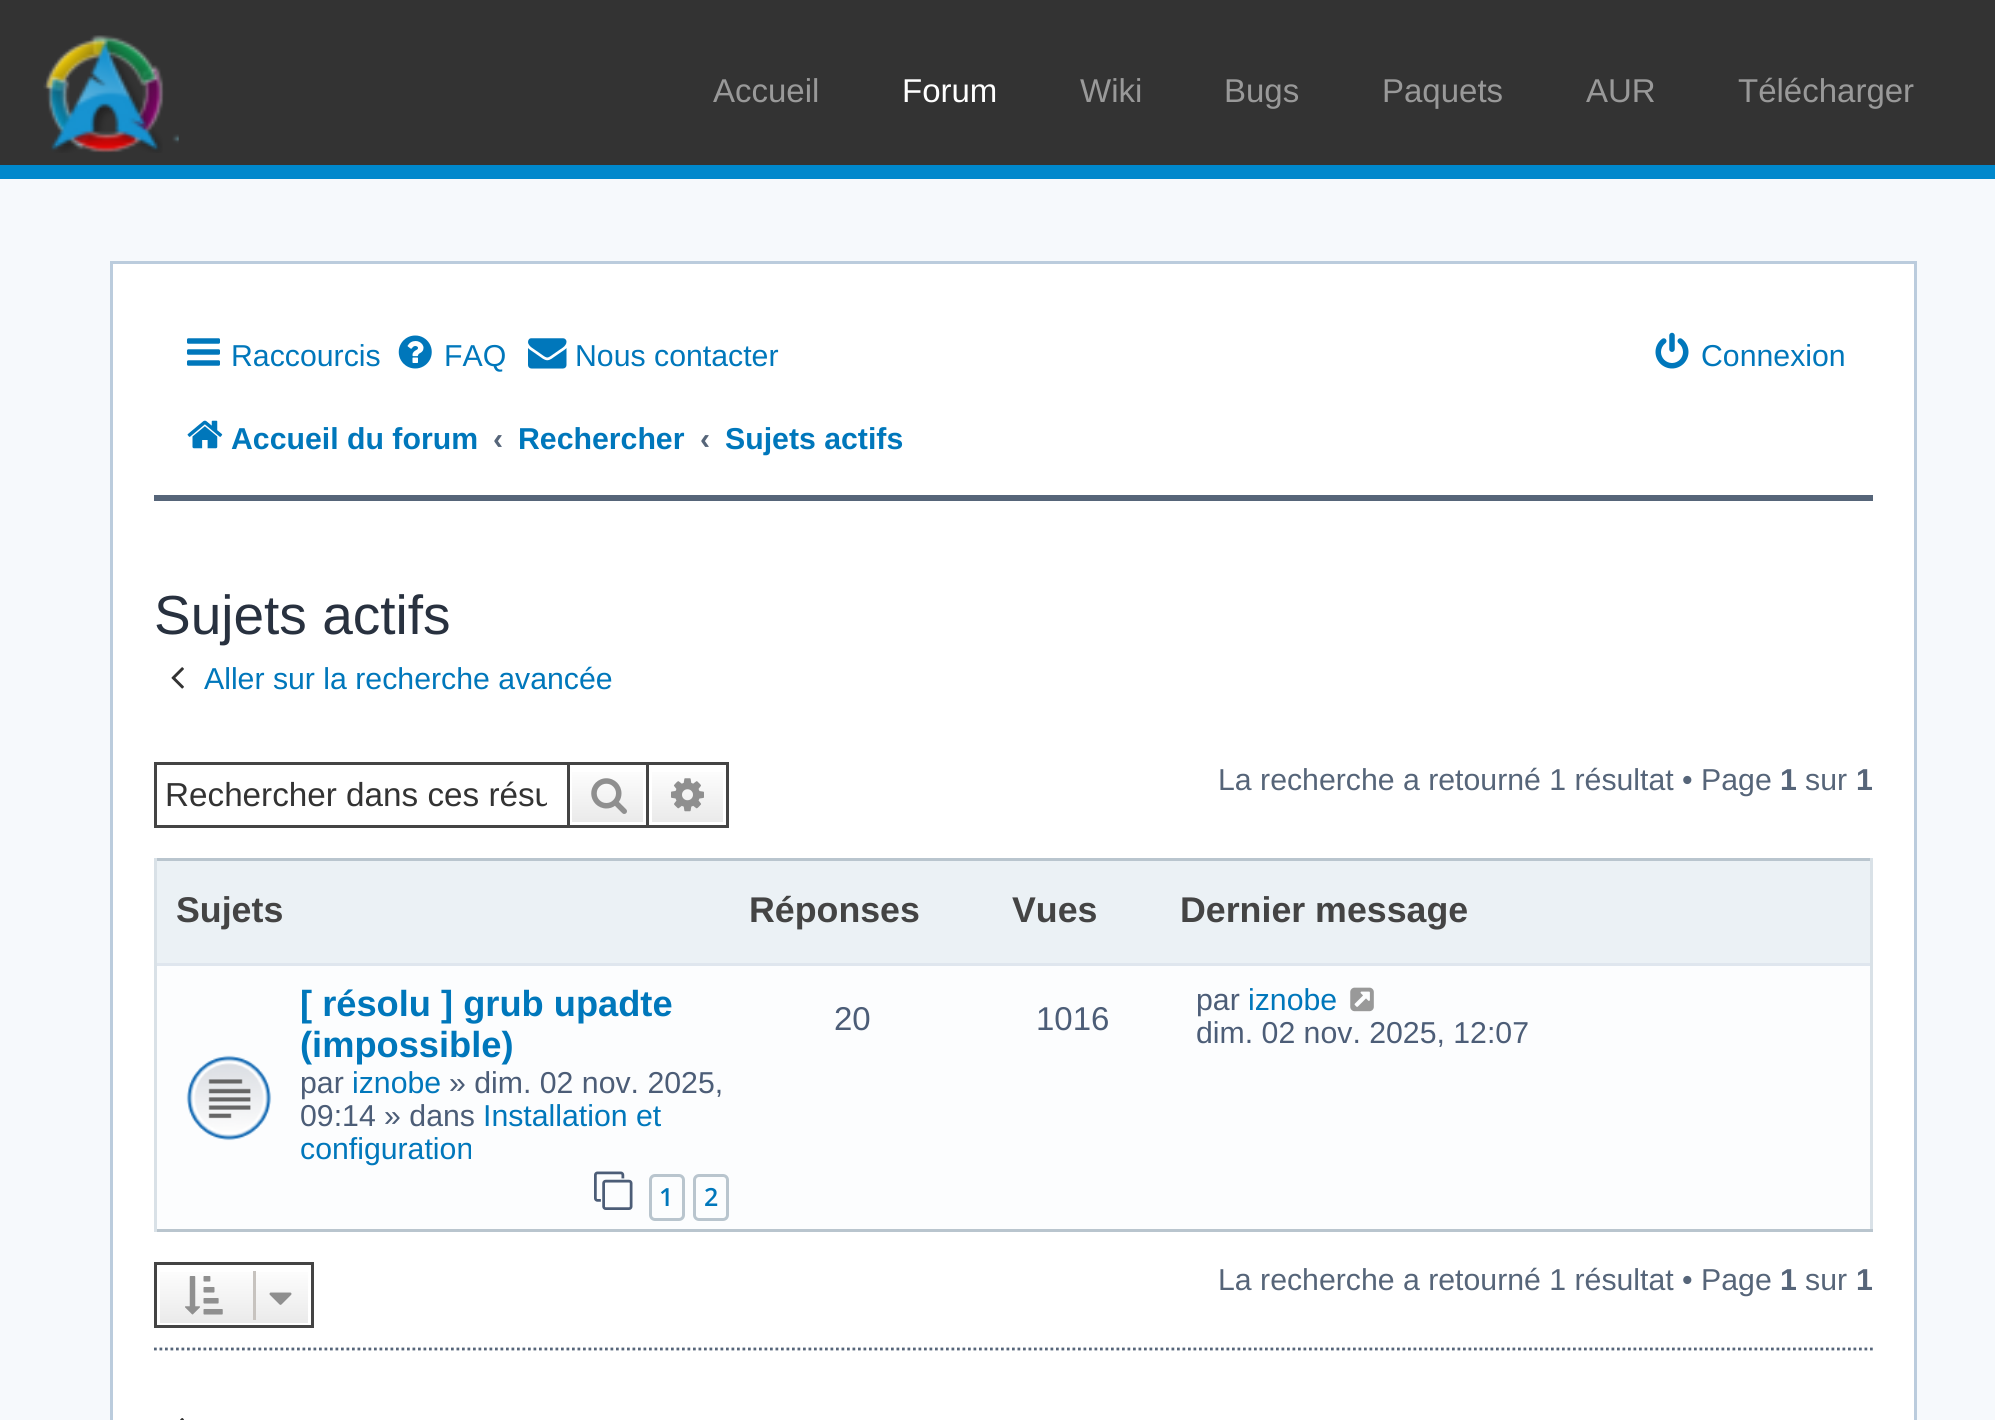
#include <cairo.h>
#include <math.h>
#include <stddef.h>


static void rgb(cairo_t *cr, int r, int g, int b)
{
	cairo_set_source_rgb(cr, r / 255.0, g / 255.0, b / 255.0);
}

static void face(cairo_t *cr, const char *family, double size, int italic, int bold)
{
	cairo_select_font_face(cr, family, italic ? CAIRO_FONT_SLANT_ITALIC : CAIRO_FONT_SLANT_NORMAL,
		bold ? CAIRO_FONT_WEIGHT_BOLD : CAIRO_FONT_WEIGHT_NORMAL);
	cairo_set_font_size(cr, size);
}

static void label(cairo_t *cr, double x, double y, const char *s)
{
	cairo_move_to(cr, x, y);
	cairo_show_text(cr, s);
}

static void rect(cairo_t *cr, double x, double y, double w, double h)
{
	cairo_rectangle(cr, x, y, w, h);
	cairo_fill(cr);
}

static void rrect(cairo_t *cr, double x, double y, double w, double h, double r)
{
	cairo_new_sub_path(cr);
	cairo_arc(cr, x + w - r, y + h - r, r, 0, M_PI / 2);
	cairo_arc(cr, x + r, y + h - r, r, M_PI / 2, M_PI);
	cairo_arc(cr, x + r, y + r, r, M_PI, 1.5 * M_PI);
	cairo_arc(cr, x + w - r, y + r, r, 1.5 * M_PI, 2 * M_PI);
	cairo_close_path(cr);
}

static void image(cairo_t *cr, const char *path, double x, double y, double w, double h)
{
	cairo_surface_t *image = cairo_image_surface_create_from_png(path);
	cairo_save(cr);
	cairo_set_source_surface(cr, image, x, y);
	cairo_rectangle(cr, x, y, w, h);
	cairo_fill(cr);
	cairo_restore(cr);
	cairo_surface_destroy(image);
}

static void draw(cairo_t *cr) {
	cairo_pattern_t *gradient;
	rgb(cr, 246, 249, 252);
	cairo_paint(cr);
	rgb(cr, 51, 51, 51);
	rect(cr, 0, 0, 1995, 165);
	rgb(cr, 0, 136, 204);
	rect(cr, 0, 165, 1995, 14);
	image(cr, "image0.png", 43, 35, 136, 118);
	face(cr, "Liberation Sans", 33, 0, 0);
	rgb(cr, 153, 153, 153);
	label(cr, 713, 102, "Accueil");
	rgb(cr, 255, 255, 255);
	label(cr, 902, 102, "Forum");
	rgb(cr, 153, 153, 153);
	label(cr, 1080, 102, "Wiki");
	label(cr, 1224, 102, "Bugs");
	label(cr, 1382, 102, "Paquets");
	label(cr, 1586, 102, "AUR");
	label(cr, 1738, 102, "Télécharger");
	rgb(cr, 255, 255, 255);
	cairo_rectangle(cr, 111.5, 262.5, 1804, 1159);
	cairo_fill_preserve(cr);
	rgb(cr, 187, 204, 221);
	cairo_set_line_width(cr, 3);
	cairo_stroke(cr);
	image(cr, "image1.png", 187, 338, 33, 28);
	face(cr, "Liberation Sans", 30.25, 0, 0);
	rgb(cr, 0, 119, 187);
	label(cr, 231, 366, "Raccourcis");
	image(cr, "image2.png", 398, 335, 34, 34);
	label(cr, 444, 366, "FAQ");
	image(cr, "image3.png", 528, 338, 39, 31);
	label(cr, 575, 366, "Nous contacter");
	image(cr, "image4.png", 1655, 332, 34, 37);
	label(cr, 1701, 366, "Connexion");
	image(cr, "image5.png", 187, 420, 36, 29);
	face(cr, "Liberation Sans", 30.25, 0, 1);
	label(cr, 231, 449, "Accueil du forum");
	rgb(cr, 86, 101, 121);
	label(cr, 493, 449, "‹");
	rgb(cr, 0, 119, 187);
	label(cr, 518, 449, "Rechercher");
	rgb(cr, 86, 101, 121);
	label(cr, 700, 449, "‹");
	rgb(cr, 0, 119, 187);
	label(cr, 725, 449, "Sujets actifs");
	rgb(cr, 86, 101, 121);
	rect(cr, 154, 495, 1719, 6);
	face(cr, "Liberation Sans", 55, 0, 0);
	rgb(cr, 40, 49, 63);
	label(cr, 154, 634, "Sujets actifs");
	image(cr, "image6.png", 171, 667, 13, 22);
	face(cr, "Liberation Sans", 30.25, 0, 0);
	rgb(cr, 0, 119, 187);
	label(cr, 204, 689, "Aller sur la recherche avancée");
	rgb(cr, 68, 68, 68);
	rect(cr, 154, 762, 413, 3);
	rect(cr, 154, 825, 413, 3);
	rect(cr, 154, 762, 3, 66);
	cairo_save(cr);
	cairo_rectangle(cr, 165, 776, 382, 38);
	cairo_clip(cr);
	face(cr, "Liberation Sans", 33.25, 0, 0);
	rgb(cr, 51, 51, 51);
	label(cr, 165, 806, "Rechercher dans ces résu");
	cairo_restore(cr);
	gradient = cairo_pattern_create_linear(608, 765, 608, 825);
	cairo_pattern_add_color_stop_rgba(gradient, 0, 1, 1, 1, 1);
	cairo_pattern_add_color_stop_rgba(gradient, 1, 0.914, 0.914, 0.914, 1);
	cairo_set_source(cr, gradient);
	cairo_pattern_destroy(gradient);
	rect(cr, 572, 772, 71, 50);
	cairo_rectangle(cr, 568.5, 763.5, 79, 63);
	rgb(cr, 68, 68, 68);
	cairo_stroke(cr);
	image(cr, "image7.png", 591, 778, 36, 36);
	gradient = cairo_pattern_create_linear(688, 765, 688, 825);
	cairo_pattern_add_color_stop_rgba(gradient, 0, 1, 1, 1, 1);
	cairo_pattern_add_color_stop_rgba(gradient, 1, 0.914, 0.914, 0.914, 1);
	cairo_set_source(cr, gradient);
	cairo_pattern_destroy(gradient);
	rect(cr, 652, 772, 71, 50);
	rgb(cr, 68, 68, 68);
	rect(cr, 649, 762, 80, 3);
	rect(cr, 726, 762, 3, 66);
	rect(cr, 649, 825, 80, 3);
	image(cr, "image8.png", 671, 778, 33, 34);
	rgb(cr, 86, 101, 121);
	label(cr, 1218, 790, "La recherche a retourné 1 résultat • Page");
	face(cr, "Liberation Sans", 30.25, 0, 1);
	label(cr, 1780, 790, "1");
	face(cr, "Liberation Sans", 30.25, 0, 0);
	label(cr, 1805, 790, "sur");
	face(cr, "Liberation Sans", 30.25, 0, 1);
	label(cr, 1856, 790, "1");
	rgb(cr, 235, 241, 245);
	rect(cr, 157, 861, 1713, 102);
	rgb(cr, 185, 197, 206);
	rect(cr, 154, 858, 1719, 3);
	rgb(cr, 217, 225, 231);
	rect(cr, 1870, 858, 3, 374);
	rgb(cr, 185, 197, 206);
	rect(cr, 154, 1229, 1719, 3);
	rgb(cr, 217, 225, 231);
	rect(cr, 154, 858, 3, 374);
	face(cr, "Liberation Sans", 35.75, 0, 1);
	rgb(cr, 68, 68, 68);
	label(cr, 176, 922, "Sujets");
	label(cr, 749, 922, "Réponses");
	label(cr, 1012, 922, "Vues");
	label(cr, 1180, 922, "Dernier message");
	rgb(cr, 252, 253, 254);
	rect(cr, 157, 966, 1713, 263);
	rgb(cr, 223, 230, 238);
	rect(cr, 157, 963, 1713, 3);
	image(cr, "image9.png", 186, 1055, 86, 86);
	face(cr, "Liberation Sans", 36.25, 0, 1);
	rgb(cr, 0, 119, 187);
	label(cr, 300, 1016, "[ résolu ] grub upadte");
	label(cr, 300, 1057, "(impossible)");
	face(cr, "Liberation Sans", 30.25, 0, 0);
	rgb(cr, 76, 93, 119);
	label(cr, 300, 1093, "par");
	rgb(cr, 0, 119, 187);
	label(cr, 352, 1093, "iznobe");
	rgb(cr, 76, 93, 119);
	label(cr, 449, 1093, "» dim. 02 nov. 2025,");
	label(cr, 300, 1126, "09:14 » dans");
	rgb(cr, 0, 119, 187);
	label(cr, 483, 1126, "Installation et");
	label(cr, 300, 1159, "configuration");
	image(cr, "image10.png", 594, 1171, 39, 39);
	rrect(cr, 650.5, 1175.5, 33, 44, 4.5);
	rgb(cr, 185, 197, 206);
	cairo_stroke(cr);
	face(cr, "Open Sans SemiBold", 25, 0, 0);
	rgb(cr, 0, 119, 187);
	label(cr, 659, 1206, "1");
	rrect(cr, 694.5, 1175.5, 33, 44, 4.5);
	rgb(cr, 185, 197, 206);
	cairo_stroke(cr);
	rgb(cr, 0, 119, 187);
	label(cr, 704, 1206, "2");
	face(cr, "Liberation Sans", 33, 0, 0);
	rgb(cr, 76, 93, 119);
	label(cr, 834, 1030, "20");
	label(cr, 1036, 1030, "1016");
	face(cr, "Liberation Sans", 30.25, 0, 0);
	label(cr, 1196, 1010, "par");
	rgb(cr, 0, 119, 187);
	label(cr, 1248, 1010, "iznobe");
	image(cr, "image11.png", 1350, 987, 24, 25);
	rgb(cr, 76, 93, 119);
	label(cr, 1196, 1043, "dim. 02 nov. 2025, 12:07");
	cairo_new_path(cr);
	cairo_move_to(cr, 154, 1349);
	cairo_line_to(cr, 1873, 1349);
	rgb(cr, 86, 101, 121);
	cairo_set_line_width(cr, 2.8);
	cairo_set_dash(cr, (double[]){2.75, 2.75}, 2, 0);
	cairo_stroke(cr);
	gradient = cairo_pattern_create_linear(234, 1265, 234, 1326);
	cairo_pattern_add_color_stop_rgba(gradient, 0, 1, 1, 1, 1);
	cairo_pattern_add_color_stop_rgba(gradient, 1, 0.914, 0.914, 0.914, 1);
	cairo_set_source(cr, gradient);
	cairo_pattern_destroy(gradient);
	rect(cr, 160, 1272, 148, 51);
	cairo_rectangle(cr, 155.5, 1263.5, 157, 63);
	rgb(cr, 68, 68, 68);
	cairo_set_line_width(cr, 3);
	cairo_set_dash(cr, NULL, 0, 0);
	cairo_stroke(cr);
	image(cr, "image12.png", 185, 1276, 38, 39);
	rgb(cr, 199, 195, 191);
	rect(cr, 253, 1271, 3, 49);
	image(cr, "image13.png", 269, 1292, 23, 13);
	rgb(cr, 86, 101, 121);
	label(cr, 1218, 1290, "La recherche a retourné 1 résultat • Page");
	face(cr, "Liberation Sans", 30.25, 0, 1);
	label(cr, 1780, 1290, "1");
	face(cr, "Liberation Sans", 30.25, 0, 0);
	label(cr, 1805, 1290, "sur");
	face(cr, "Liberation Sans", 30.25, 0, 1);
	label(cr, 1856, 1290, "1");
	image(cr, "image14.png", 180, 1418, 4, 2);
}

int main(void) {
	cairo_surface_t *surface = cairo_image_surface_create(CAIRO_FORMAT_RGB24, 1995, 1420);
	cairo_t *cr = cairo_create(surface);
	cairo_font_options_t *options = cairo_font_options_create();
	cairo_font_options_set_hint_metrics(options, CAIRO_HINT_METRICS_OFF);
	cairo_font_options_set_hint_style(options, CAIRO_HINT_STYLE_NONE);
	cairo_set_font_options(cr, options);
	cairo_set_miter_limit(cr, 4);
	draw(cr);
	cairo_surface_write_to_png(surface, "render.png");
	cairo_font_options_destroy(options);
	cairo_destroy(cr);
	cairo_surface_destroy(surface);
	return 0;
}
